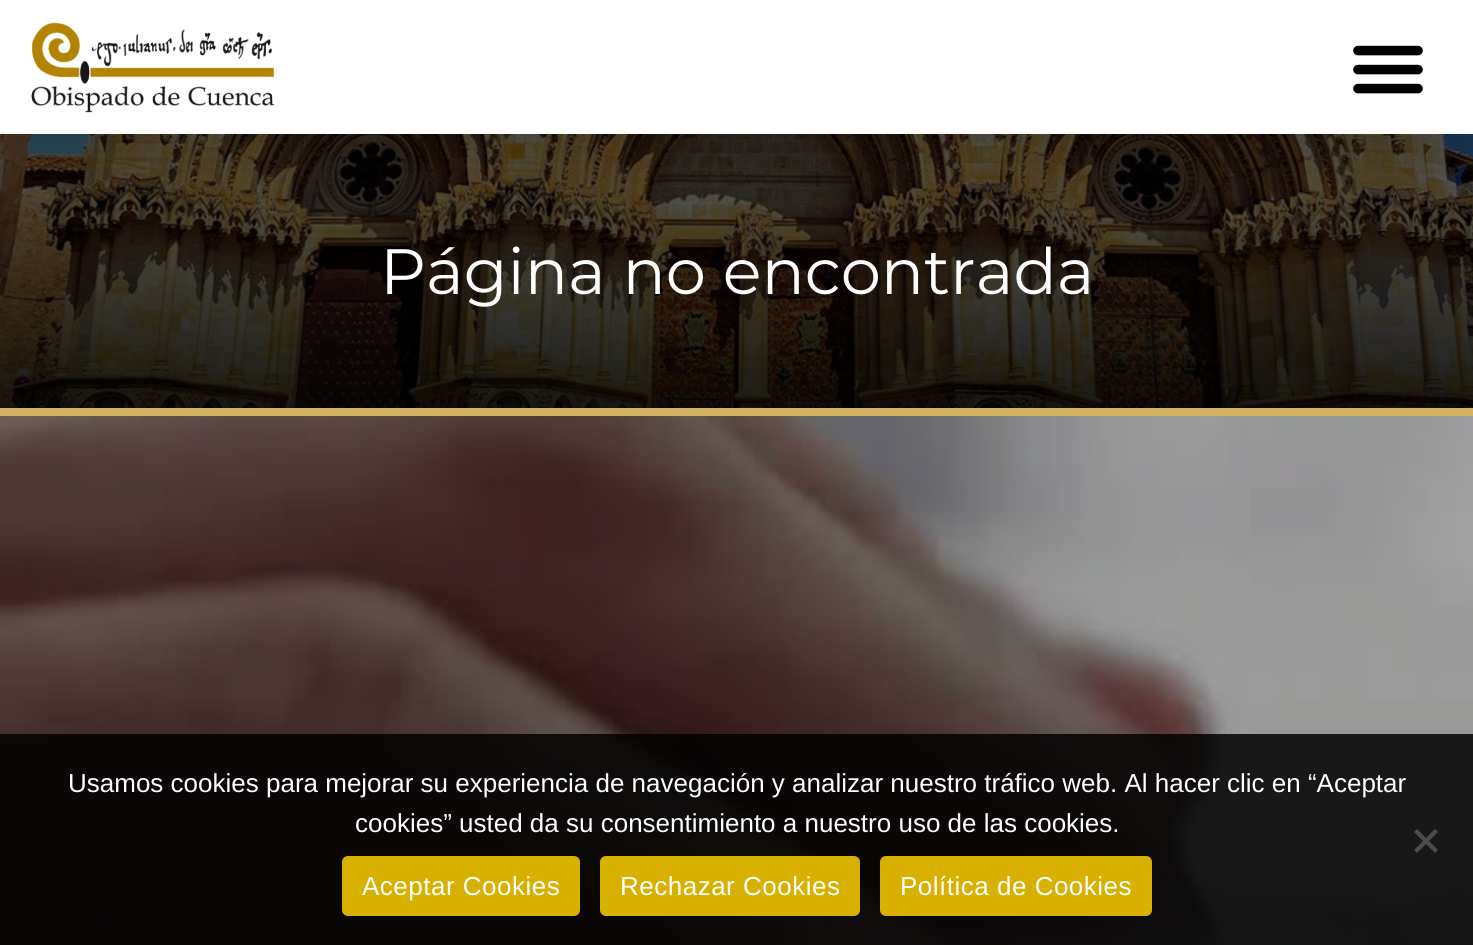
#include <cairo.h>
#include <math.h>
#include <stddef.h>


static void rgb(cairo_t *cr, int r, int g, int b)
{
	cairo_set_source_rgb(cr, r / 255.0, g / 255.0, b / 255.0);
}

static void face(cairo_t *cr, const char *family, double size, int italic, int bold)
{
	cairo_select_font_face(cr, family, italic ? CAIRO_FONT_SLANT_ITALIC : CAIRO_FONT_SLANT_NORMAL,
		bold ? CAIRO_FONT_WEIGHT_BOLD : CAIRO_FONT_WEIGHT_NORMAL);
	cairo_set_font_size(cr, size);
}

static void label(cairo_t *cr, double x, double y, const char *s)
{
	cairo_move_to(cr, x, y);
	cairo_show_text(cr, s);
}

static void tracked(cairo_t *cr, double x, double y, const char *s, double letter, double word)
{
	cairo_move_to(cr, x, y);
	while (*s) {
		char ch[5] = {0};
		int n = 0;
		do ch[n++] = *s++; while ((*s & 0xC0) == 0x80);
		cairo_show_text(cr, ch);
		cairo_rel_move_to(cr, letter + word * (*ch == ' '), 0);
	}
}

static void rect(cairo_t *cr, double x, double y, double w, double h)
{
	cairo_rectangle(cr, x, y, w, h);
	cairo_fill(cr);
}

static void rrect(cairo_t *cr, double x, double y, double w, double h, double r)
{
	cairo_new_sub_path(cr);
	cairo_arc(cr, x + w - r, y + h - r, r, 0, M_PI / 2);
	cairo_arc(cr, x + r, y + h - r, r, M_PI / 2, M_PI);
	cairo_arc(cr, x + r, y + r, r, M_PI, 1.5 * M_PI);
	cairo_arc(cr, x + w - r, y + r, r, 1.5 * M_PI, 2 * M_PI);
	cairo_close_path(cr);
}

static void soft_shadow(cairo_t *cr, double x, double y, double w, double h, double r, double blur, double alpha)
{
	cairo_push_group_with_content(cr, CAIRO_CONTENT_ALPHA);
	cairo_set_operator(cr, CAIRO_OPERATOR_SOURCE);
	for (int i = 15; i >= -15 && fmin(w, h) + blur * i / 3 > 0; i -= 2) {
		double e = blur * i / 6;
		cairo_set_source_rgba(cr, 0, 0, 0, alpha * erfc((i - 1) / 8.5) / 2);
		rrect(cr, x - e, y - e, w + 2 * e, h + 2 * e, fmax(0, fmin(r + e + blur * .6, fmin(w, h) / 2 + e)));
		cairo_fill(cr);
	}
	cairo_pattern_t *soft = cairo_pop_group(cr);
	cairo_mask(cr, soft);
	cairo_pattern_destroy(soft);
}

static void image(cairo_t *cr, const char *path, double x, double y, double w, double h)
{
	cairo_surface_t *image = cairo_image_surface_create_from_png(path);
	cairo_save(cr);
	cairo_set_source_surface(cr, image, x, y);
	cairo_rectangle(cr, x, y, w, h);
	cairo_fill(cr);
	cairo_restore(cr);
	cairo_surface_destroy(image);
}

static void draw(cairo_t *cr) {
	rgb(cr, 255, 255, 255);
	cairo_paint(cr);
	image(cr, "image2.png", 0, 134, 1473, 274);
	rgb(cr, 0, 0, 0);
	soft_shadow(cr, -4, 16, 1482, 142, 0, 30, 0.3);
	rgb(cr, 255, 255, 255);
	rect(cr, 0, 0, 1473, 134);
	image(cr, "image0.png", 31, 22, 243, 91);
	image(cr, "image1.png", 1353, 45, 70, 49);
	rgb(cr, 209, 179, 98);
	rect(cr, 0, 408, 1473, 8);
	face(cr, "Montserrat", 64, 0, 0);
	rgb(cr, 255, 255, 255);
	label(cr, 380, 294, "Página no encontrada");
	image(cr, "image3.png", 0, 416, 1473, 529);
	cairo_set_source_rgba(cr, 0, 0, 0, 0.84);
	rect(cr, 0, 734, 1473, 211);
	face(cr, "Liberation Sans", 26, 0, 0);
	rgb(cr, 255, 255, 255);
	label(cr, 68, 792, "Usamos cookies para mejorar su experiencia de navegación y analizar nuestro tráfico web. Al hacer clic en “Aceptar");
	label(cr, 355, 832, "cookies” usted da su consentimiento a nuestro uso de las cookies.");
	rgb(cr, 76, 76, 76);
	cairo_new_path(cr);
	cairo_move_to(cr, 1435, 829);
	cairo_line_to(cr, 1438, 832);
	cairo_line_to(cr, 1417, 853);
	cairo_line_to(cr, 1414, 850);
	cairo_close_path(cr);
	cairo_fill(cr);
	cairo_new_path(cr);
	cairo_move_to(cr, 1414, 832);
	cairo_line_to(cr, 1417, 829);
	cairo_line_to(cr, 1438, 850);
	cairo_line_to(cr, 1435, 853);
	cairo_close_path(cr);
	cairo_fill(cr);
	rgb(cr, 216, 177, 0);
	rrect(cr, 342, 856, 238, 60, 6);
	cairo_fill(cr);
	rgb(cr, 255, 255, 255);
	tracked(cr, 362, 895, "Aceptar Cookies", 0.5, 0);
	rgb(cr, 216, 177, 0);
	rrect(cr, 600, 856, 260, 60, 6);
	cairo_fill(cr);
	rgb(cr, 255, 255, 255);
	tracked(cr, 620, 895, "Rechazar Cookies", 0.5, 0);
	rgb(cr, 216, 177, 0);
	rrect(cr, 880, 856, 272, 60, 6);
	cairo_fill(cr);
	rgb(cr, 255, 255, 255);
	tracked(cr, 900, 895, "Política de Cookies", 0.5, 0);
}

int main(void) {
	cairo_surface_t *surface = cairo_image_surface_create(CAIRO_FORMAT_RGB24, 1473, 945);
	cairo_t *cr = cairo_create(surface);
	cairo_font_options_t *options = cairo_font_options_create();
	cairo_font_options_set_hint_metrics(options, CAIRO_HINT_METRICS_OFF);
	cairo_font_options_set_hint_style(options, CAIRO_HINT_STYLE_NONE);
	cairo_set_font_options(cr, options);
	cairo_set_miter_limit(cr, 4);
	draw(cr);
	cairo_surface_write_to_png(surface, "render.png");
	cairo_font_options_destroy(options);
	cairo_destroy(cr);
	cairo_surface_destroy(surface);
	return 0;
}
